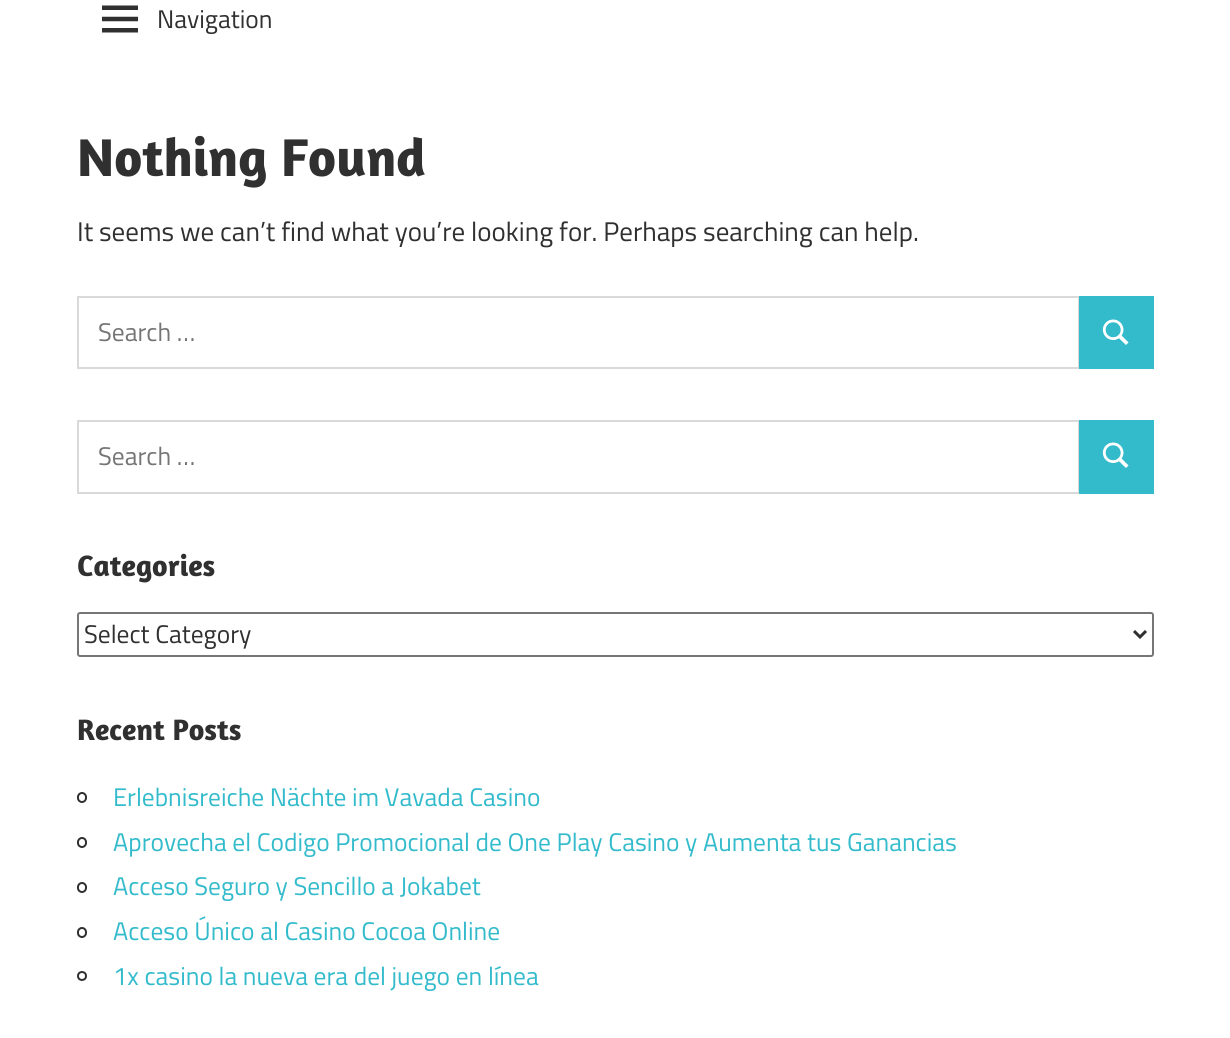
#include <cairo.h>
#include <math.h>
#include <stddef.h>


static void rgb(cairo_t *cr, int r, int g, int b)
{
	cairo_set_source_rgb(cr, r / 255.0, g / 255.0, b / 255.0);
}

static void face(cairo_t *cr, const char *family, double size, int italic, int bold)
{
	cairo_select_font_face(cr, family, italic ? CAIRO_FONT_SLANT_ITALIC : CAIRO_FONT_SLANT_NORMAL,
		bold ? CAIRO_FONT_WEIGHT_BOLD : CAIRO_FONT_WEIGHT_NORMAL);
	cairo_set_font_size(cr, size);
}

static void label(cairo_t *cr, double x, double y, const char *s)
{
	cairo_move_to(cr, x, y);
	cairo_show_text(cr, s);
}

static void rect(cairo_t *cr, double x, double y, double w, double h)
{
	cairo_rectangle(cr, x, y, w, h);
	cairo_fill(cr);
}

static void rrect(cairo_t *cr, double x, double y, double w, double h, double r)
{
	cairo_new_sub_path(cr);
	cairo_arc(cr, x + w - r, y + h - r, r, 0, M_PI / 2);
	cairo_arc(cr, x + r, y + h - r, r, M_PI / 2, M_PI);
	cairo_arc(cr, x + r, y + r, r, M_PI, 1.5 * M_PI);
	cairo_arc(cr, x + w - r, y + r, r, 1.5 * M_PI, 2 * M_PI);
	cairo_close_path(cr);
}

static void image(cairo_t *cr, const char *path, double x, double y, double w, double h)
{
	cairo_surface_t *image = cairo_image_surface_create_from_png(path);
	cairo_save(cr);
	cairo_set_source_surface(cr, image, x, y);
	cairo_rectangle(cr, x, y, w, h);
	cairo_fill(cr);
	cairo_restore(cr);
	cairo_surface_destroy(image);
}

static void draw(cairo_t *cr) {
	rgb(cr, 255, 255, 255);
	cairo_paint(cr);
	image(cr, "image0.png", 102, 5, 36, 28);
	face(cr, "Titillium Web", 25.5, 0, 0);
	rgb(cr, 48, 48, 48);
	label(cr, 157, 28, "Navigation");
	face(cr, "Amaranth", 54, 0, 1);
	label(cr, 77, 176, "Nothing Found");
	face(cr, "Titillium Web", 27, 0, 0);
	label(cr, 77, 241, "It seems we can’t find what you’re looking for. Perhaps searching can help.");
	cairo_rectangle(cr, 78, 297, 1001, 71);
	rgb(cr, 217, 217, 217);
	cairo_stroke(cr);
	face(cr, "Titillium Web", 25.5, 0, 0);
	rgb(cr, 117, 117, 117);
	label(cr, 98, 341, "Search …");
	rgb(cr, 51, 187, 204);
	rect(cr, 1079, 296, 75, 73);
	image(cr, "image1.png", 1102, 319, 27, 26);
	cairo_rectangle(cr, 78, 421, 1001, 72);
	rgb(cr, 217, 217, 217);
	cairo_stroke(cr);
	rgb(cr, 117, 117, 117);
	label(cr, 98, 465, "Search …");
	rgb(cr, 51, 187, 204);
	rect(cr, 1079, 420, 75, 74);
	image(cr, "image1.png", 1102, 442, 27, 26);
	face(cr, "Amaranth", 30, 0, 1);
	rgb(cr, 48, 48, 48);
	label(cr, 77, 576, "Categories");
	rrect(cr, 78, 613, 1075, 43, 2);
	rgb(cr, 118, 118, 118);
	cairo_stroke(cr);
	cairo_new_path(cr);
	cairo_move_to(cr, 1134, 631);
	cairo_line_to(cr, 1140, 637);
	cairo_line_to(cr, 1146, 631);
	rgb(cr, 48, 48, 48);
	cairo_set_line_width(cr, 3);
	cairo_stroke(cr);
	face(cr, "Titillium Web", 25.5, 0, 0);
	label(cr, 84, 643, "Select Category");
	face(cr, "Amaranth", 30, 0, 1);
	label(cr, 77, 740, "Recent Posts");
	rrect(cr, 78, 793, 8, 9, 4);
	cairo_set_line_width(cr, 2);
	cairo_stroke(cr);
	face(cr, "Titillium Web", 25.5, 0, 0);
	rgb(cr, 51, 187, 204);
	label(cr, 113, 806, "Erlebnisreiche Nächte im Vavada Casino");
	rrect(cr, 78, 838, 8, 9, 4);
	rgb(cr, 48, 48, 48);
	cairo_stroke(cr);
	rgb(cr, 51, 187, 204);
	label(cr, 113, 851, "Aprovecha el Codigo Promocional de One Play Casino y Aumenta tus Ganancias");
	rrect(cr, 78, 883, 8, 9, 4);
	rgb(cr, 48, 48, 48);
	cairo_stroke(cr);
	rgb(cr, 51, 187, 204);
	label(cr, 113, 895, "Acceso Seguro y Sencillo a Jokabet");
	rrect(cr, 78, 928, 8, 9, 4);
	rgb(cr, 48, 48, 48);
	cairo_stroke(cr);
	rgb(cr, 51, 187, 204);
	label(cr, 113, 940, "Acceso Único al Casino Cocoa Online");
	cairo_new_path(cr);
	cairo_arc(cr, 82, 976, 4, 0, 2 * M_PI);
	rgb(cr, 48, 48, 48);
	cairo_stroke(cr);
	rgb(cr, 51, 187, 204);
	label(cr, 113, 985, "1x casino la nueva era del juego en línea");
}

int main(void) {
	cairo_surface_t *surface = cairo_image_surface_create(CAIRO_FORMAT_RGB24, 1230, 1038);
	cairo_t *cr = cairo_create(surface);
	cairo_font_options_t *options = cairo_font_options_create();
	cairo_font_options_set_hint_metrics(options, CAIRO_HINT_METRICS_OFF);
	cairo_font_options_set_hint_style(options, CAIRO_HINT_STYLE_NONE);
	cairo_set_font_options(cr, options);
	cairo_set_miter_limit(cr, 4);
	draw(cr);
	cairo_surface_write_to_png(surface, "render.png");
	cairo_font_options_destroy(options);
	cairo_destroy(cr);
	cairo_surface_destroy(surface);
	return 0;
}
